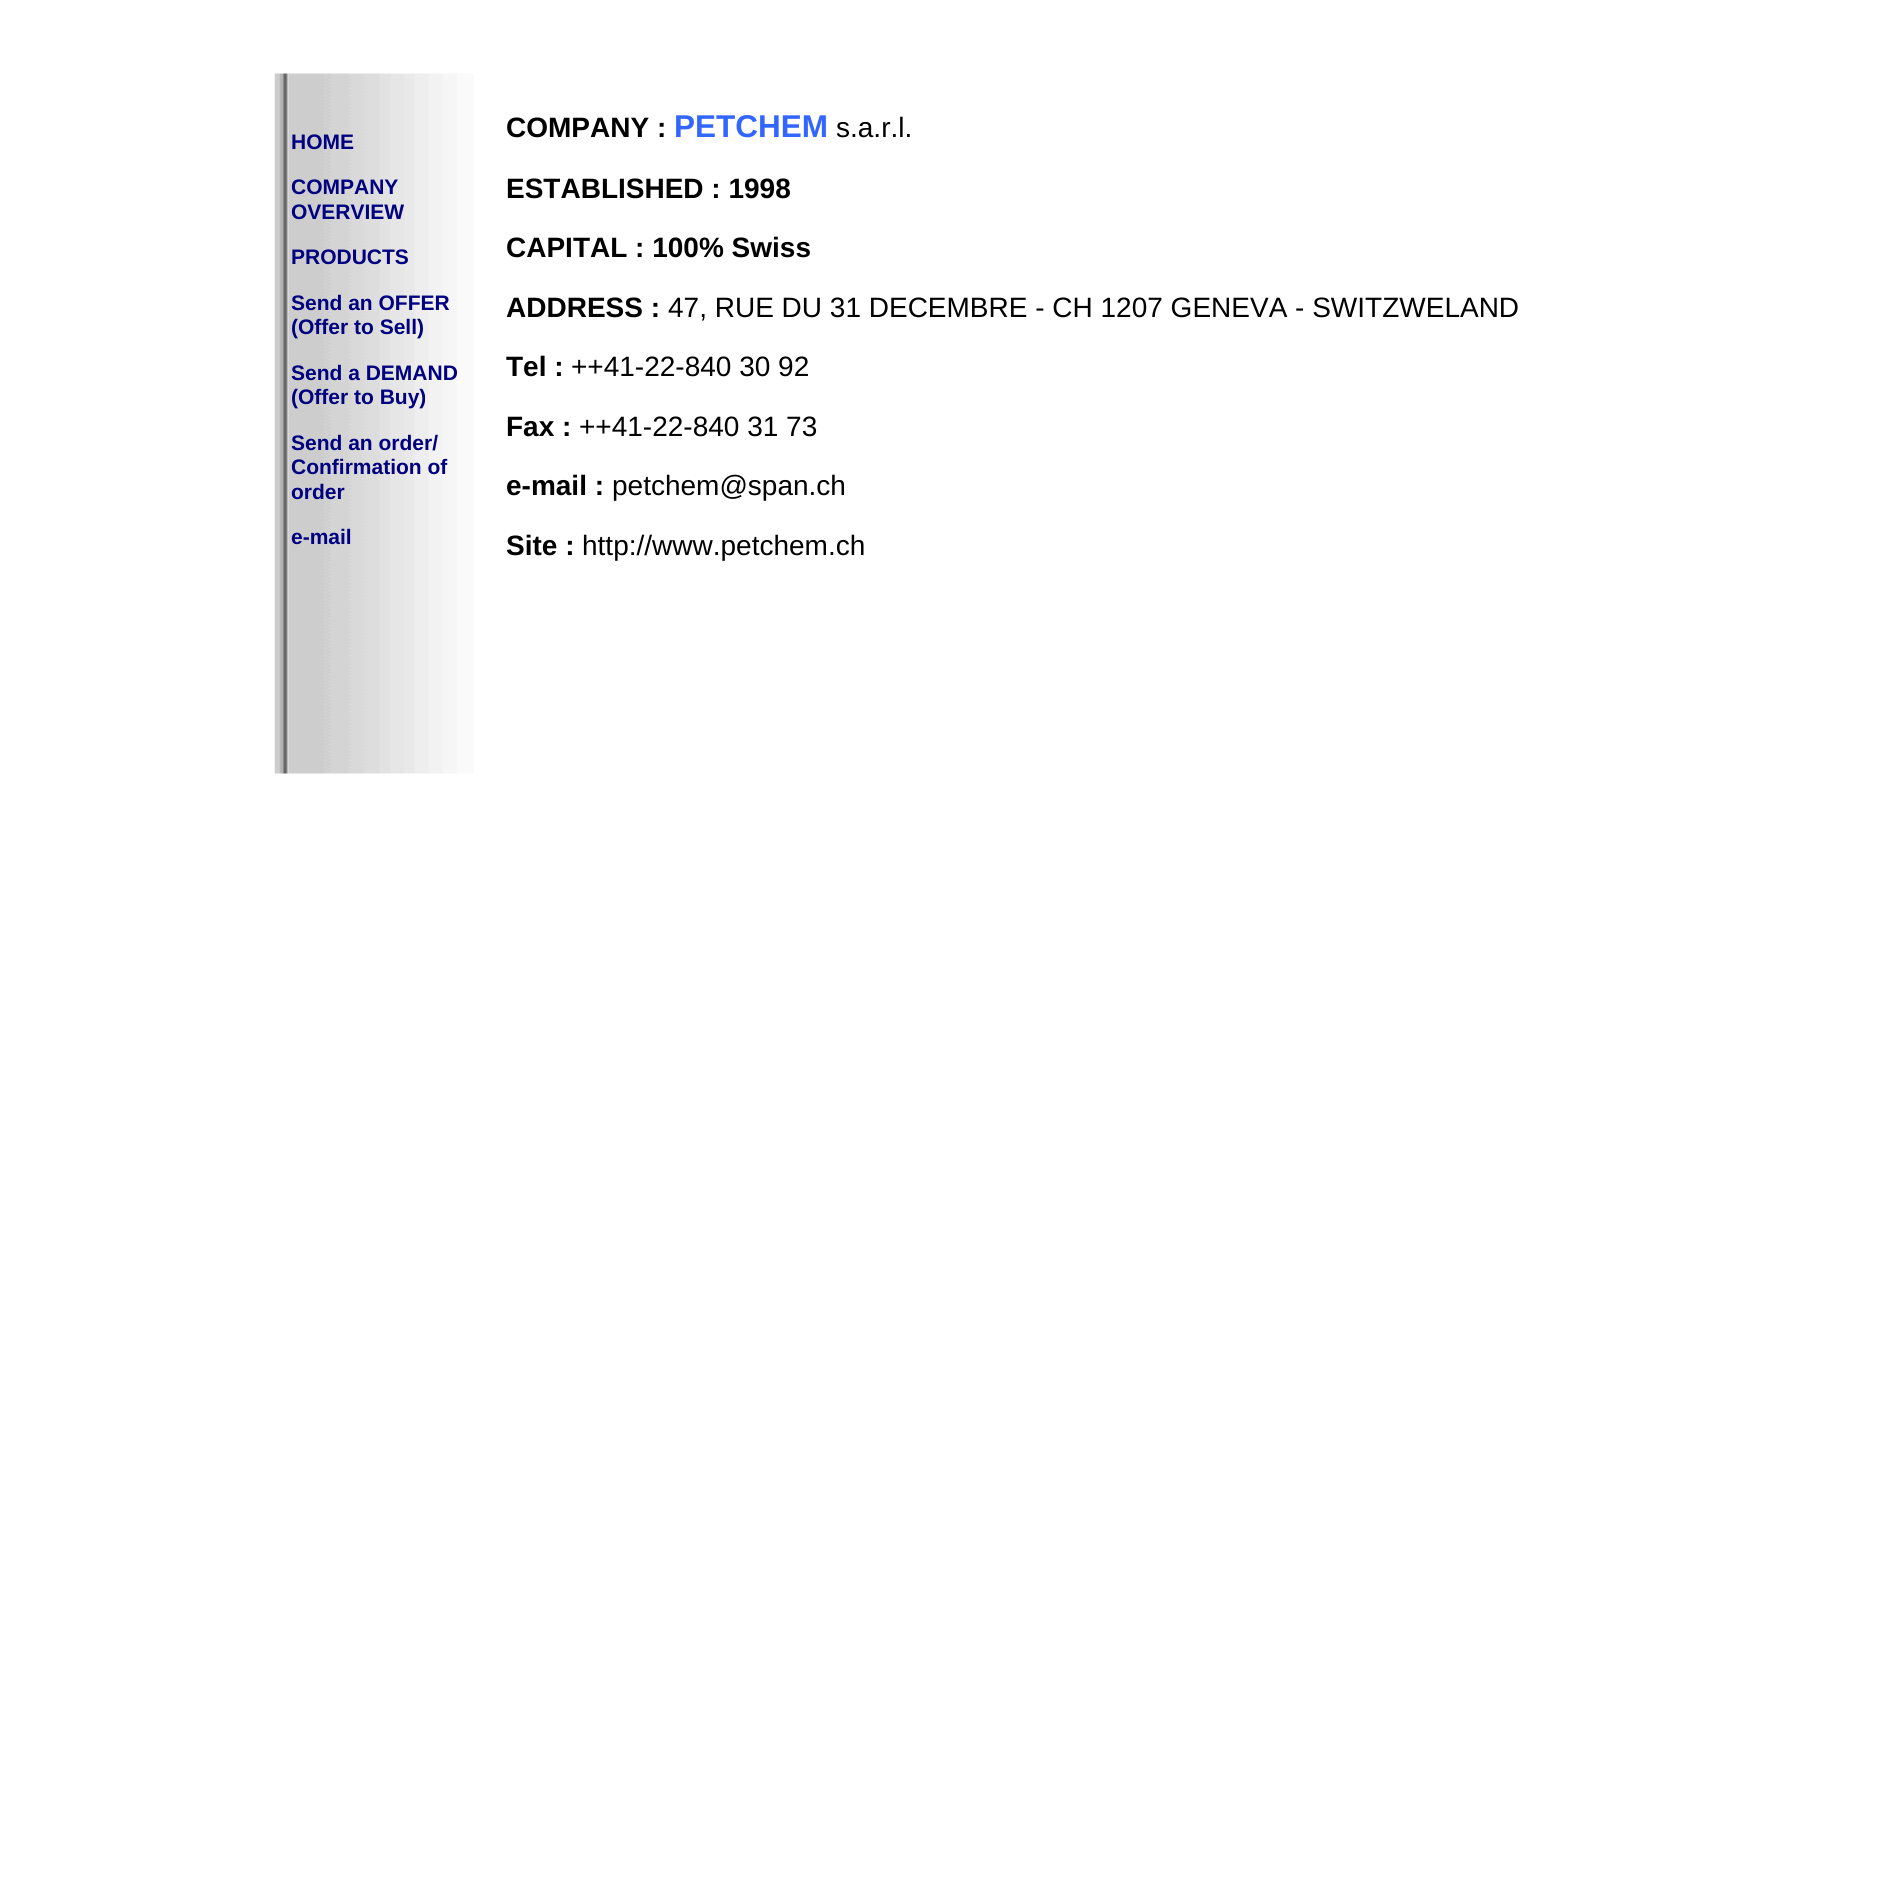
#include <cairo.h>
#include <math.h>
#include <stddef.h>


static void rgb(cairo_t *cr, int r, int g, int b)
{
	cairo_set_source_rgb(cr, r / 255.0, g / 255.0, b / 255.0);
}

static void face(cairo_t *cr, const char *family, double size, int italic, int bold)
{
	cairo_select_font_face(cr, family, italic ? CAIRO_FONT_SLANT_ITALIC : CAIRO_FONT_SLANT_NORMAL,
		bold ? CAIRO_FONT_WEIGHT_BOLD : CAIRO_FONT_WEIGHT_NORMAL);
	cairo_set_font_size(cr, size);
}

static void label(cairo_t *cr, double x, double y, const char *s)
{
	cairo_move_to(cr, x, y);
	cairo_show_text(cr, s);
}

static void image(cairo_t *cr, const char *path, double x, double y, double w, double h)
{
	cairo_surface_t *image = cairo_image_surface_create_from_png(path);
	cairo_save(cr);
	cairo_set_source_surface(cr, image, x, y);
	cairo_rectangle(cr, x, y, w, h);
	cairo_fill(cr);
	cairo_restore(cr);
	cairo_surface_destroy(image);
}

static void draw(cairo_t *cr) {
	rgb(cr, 255, 255, 255);
	cairo_paint(cr);
	image(cr, "image0.png", 274, 73, 15, 701);
	image(cr, "image1.png", 289, 73, 185, 701);
	face(cr, "Liberation Sans", 21, 0, 1);
	rgb(cr, 0, 0, 128);
	label(cr, 291, 149, "HOME");
	label(cr, 291, 194, "COMPANY");
	label(cr, 291, 219, "OVERVIEW");
	label(cr, 291, 264, "PRODUCTS");
	label(cr, 291, 310, "Send an OFFER");
	label(cr, 291, 334, "(Offer to Sell)");
	label(cr, 291, 380, "Send a DEMAND");
	label(cr, 291, 404, "(Offer to Buy)");
	label(cr, 291, 450, "Send an order/");
	label(cr, 291, 474, "Confirmation of");
	label(cr, 291, 499, "order");
	label(cr, 291, 544, "e-mail");
	face(cr, "Liberation Sans", 28, 0, 1);
	rgb(cr, 0, 0, 0);
	label(cr, 506, 137, "COMPANY :");
	face(cr, "Liberation Sans", 31.5, 0, 1);
	rgb(cr, 51, 102, 255);
	label(cr, 674, 137, "PETCHEM");
	face(cr, "Liberation Sans", 28, 0, 0);
	rgb(cr, 0, 0, 0);
	label(cr, 836, 137, "s.a.r.l.");
	face(cr, "Liberation Sans", 28, 0, 1);
	label(cr, 506, 198, "ESTABLISHED : 1998");
	label(cr, 506, 257, "CAPITAL : 100% Swiss");
	label(cr, 506, 317, "ADDRESS :");
	face(cr, "Liberation Sans", 28, 0, 0);
	label(cr, 668, 317, "47, RUE DU 31 DECEMBRE - CH 1207 GENEVA - SWITZWELAND");
	face(cr, "Liberation Sans", 28, 0, 1);
	label(cr, 506, 376, "Tel :");
	face(cr, "Liberation Sans", 28, 0, 0);
	label(cr, 571, 376, "++41-22-840 30 92");
	face(cr, "Liberation Sans", 28, 0, 1);
	label(cr, 506, 436, "Fax :");
	face(cr, "Liberation Sans", 28, 0, 0);
	label(cr, 579, 436, "++41-22-840 31 73");
	face(cr, "Liberation Sans", 28, 0, 1);
	label(cr, 506, 495, "e-mail :");
	face(cr, "Liberation Sans", 28, 0, 0);
	label(cr, 612, 495, "petchem@span.ch");
	face(cr, "Liberation Sans", 28, 0, 1);
	label(cr, 506, 555, "Site :");
	face(cr, "Liberation Sans", 28, 0, 0);
	label(cr, 582, 555, "http://www.petchem.ch");
}

int main(void) {
	cairo_surface_t *surface = cairo_image_surface_create(CAIRO_FORMAT_RGB24, 1877, 1877);
	cairo_t *cr = cairo_create(surface);
	cairo_font_options_t *options = cairo_font_options_create();
	cairo_font_options_set_hint_metrics(options, CAIRO_HINT_METRICS_OFF);
	cairo_font_options_set_hint_style(options, CAIRO_HINT_STYLE_NONE);
	cairo_set_font_options(cr, options);
	cairo_set_miter_limit(cr, 4);
	draw(cr);
	cairo_surface_write_to_png(surface, "render.png");
	cairo_font_options_destroy(options);
	cairo_destroy(cr);
	cairo_surface_destroy(surface);
	return 0;
}
